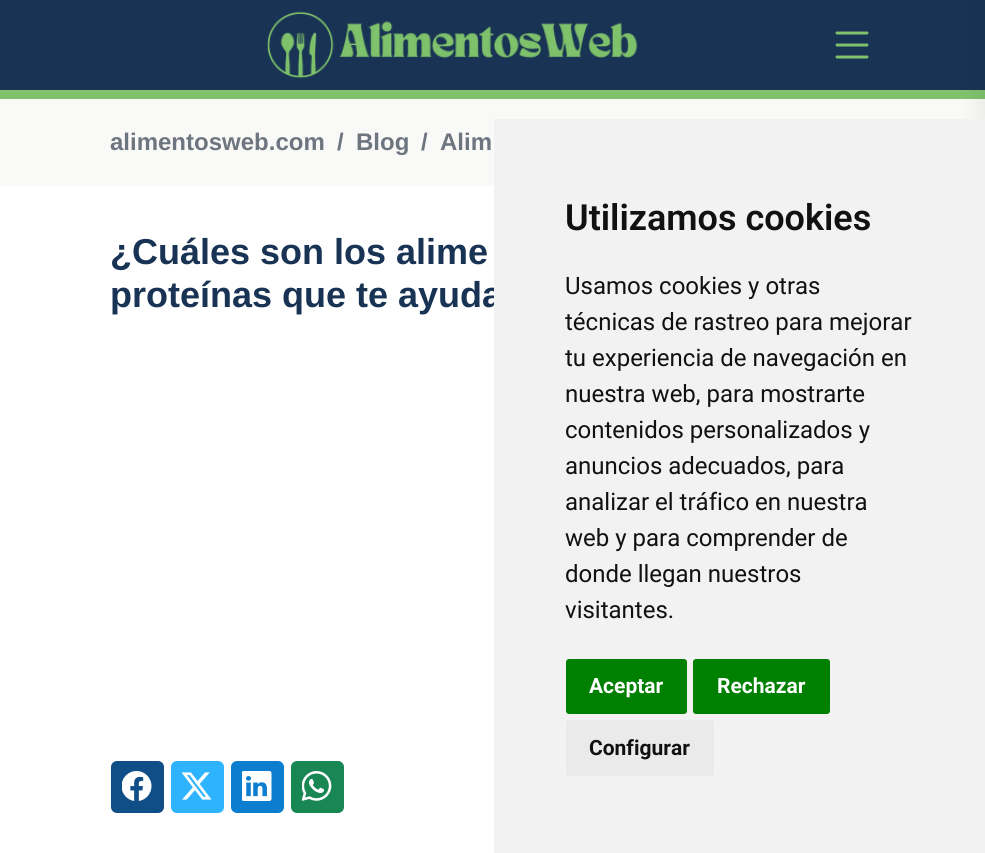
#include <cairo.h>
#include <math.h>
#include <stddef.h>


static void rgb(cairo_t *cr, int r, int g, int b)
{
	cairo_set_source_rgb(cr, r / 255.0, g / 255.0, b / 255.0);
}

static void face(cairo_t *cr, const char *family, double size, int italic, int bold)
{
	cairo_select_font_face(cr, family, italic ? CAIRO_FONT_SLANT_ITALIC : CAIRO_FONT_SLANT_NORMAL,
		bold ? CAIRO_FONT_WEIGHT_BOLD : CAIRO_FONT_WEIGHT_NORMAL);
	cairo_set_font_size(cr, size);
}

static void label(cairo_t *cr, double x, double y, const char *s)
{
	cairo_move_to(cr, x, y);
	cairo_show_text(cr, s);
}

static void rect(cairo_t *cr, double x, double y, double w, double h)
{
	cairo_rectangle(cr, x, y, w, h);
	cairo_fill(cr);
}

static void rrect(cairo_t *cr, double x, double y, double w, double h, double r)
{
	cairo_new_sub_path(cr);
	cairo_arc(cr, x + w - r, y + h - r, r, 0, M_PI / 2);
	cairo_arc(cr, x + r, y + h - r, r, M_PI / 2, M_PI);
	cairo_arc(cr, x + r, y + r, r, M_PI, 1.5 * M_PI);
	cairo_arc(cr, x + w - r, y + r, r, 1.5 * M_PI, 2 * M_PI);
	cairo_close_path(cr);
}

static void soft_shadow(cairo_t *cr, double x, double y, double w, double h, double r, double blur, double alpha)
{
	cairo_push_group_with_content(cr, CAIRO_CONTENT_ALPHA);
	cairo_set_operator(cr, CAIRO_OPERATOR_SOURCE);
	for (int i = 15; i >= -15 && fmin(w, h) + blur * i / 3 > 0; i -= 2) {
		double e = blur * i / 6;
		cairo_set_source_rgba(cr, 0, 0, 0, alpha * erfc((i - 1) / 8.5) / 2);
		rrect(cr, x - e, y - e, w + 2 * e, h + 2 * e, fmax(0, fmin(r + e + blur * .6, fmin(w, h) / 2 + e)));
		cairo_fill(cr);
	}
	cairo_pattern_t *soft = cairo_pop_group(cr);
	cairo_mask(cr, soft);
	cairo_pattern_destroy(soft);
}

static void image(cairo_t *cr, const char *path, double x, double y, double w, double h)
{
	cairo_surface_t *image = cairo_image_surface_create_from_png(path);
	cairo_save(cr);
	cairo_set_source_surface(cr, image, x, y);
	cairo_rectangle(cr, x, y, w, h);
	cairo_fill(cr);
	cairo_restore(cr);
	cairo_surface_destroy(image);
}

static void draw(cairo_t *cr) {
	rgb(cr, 255, 255, 255);
	cairo_paint(cr);
	rgb(cr, 24, 51, 84);
	rect(cr, 0, 0, 985, 90);
	rgb(cr, 128, 194, 108);
	rect(cr, 0, 90, 985, 9);
	image(cr, "image0.png", 267, 11, 371, 68);
	image(cr, "image1.png", 835, 31, 34, 28);
	rgb(cr, 249, 249, 247);
	rect(cr, 0, 99, 985, 87);
	rgb(cr, 0, 0, 0);
	soft_shadow(cr, 977, 0, 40, 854, 0, 10.5, 0.06);
	face(cr, "Liberation Sans", 24, 0, 1);
	rgb(cr, 109, 117, 127);
	label(cr, 110, 150, "alimentosweb.com");
	label(cr, 337, 150, "/");
	label(cr, 356, 150, "Blog");
	label(cr, 421, 150, "/");
	label(cr, 440, 150, "Alim");
	face(cr, "Liberation Sans", 36, 0, 1);
	rgb(cr, 24, 51, 84);
	label(cr, 110, 264, "¿Cuáles son los alime");
	label(cr, 110, 307, "proteínas que te ayuda");
	rgb(cr, 16, 78, 135);
	rrect(cr, 111, 761, 53, 52, 6);
	cairo_fill(cr);
	image(cr, "image2.png", 122, 771, 30, 30);
	rgb(cr, 46, 180, 255);
	rrect(cr, 171, 761, 53, 52, 6);
	cairo_fill(cr);
	image(cr, "image3.png", 182, 772, 30, 28);
	rgb(cr, 12, 126, 208);
	rrect(cr, 231, 761, 53, 52, 6);
	cairo_fill(cr);
	image(cr, "image4.png", 242, 771, 30, 30);
	rgb(cr, 25, 135, 84);
	rrect(cr, 291, 761, 53, 52, 6);
	cairo_fill(cr);
	image(cr, "image5.png", 302, 771, 30, 30);
	rgb(cr, 242, 242, 242);
	rect(cr, 494, 119, 491, 734);
	face(cr, "Roboto SemiBold", 36, 0, 0);
	rgb(cr, 17, 17, 17);
	label(cr, 565, 230, "Utilizamos cookies");
	face(cr, "Roboto", 24, 0, 0);
	label(cr, 565, 294, "Usamos cookies y otras");
	label(cr, 565, 330, "técnicas de rastreo para mejorar");
	label(cr, 565, 366, "tu experiencia de navegación en");
	label(cr, 565, 402, "nuestra web, para mostrarte");
	label(cr, 565, 438, "contenidos personalizados y");
	label(cr, 565, 474, "anuncios adecuados, para");
	label(cr, 565, 510, "analizar el tráfico en nuestra");
	label(cr, 565, 546, "web y para comprender de");
	label(cr, 565, 582, "donde llegan nuestros");
	label(cr, 565, 618, "visitantes.");
	rgb(cr, 0, 128, 0);
	rrect(cr, 566, 659, 121, 55, 3);
	cairo_fill(cr);
	face(cr, "Roboto", 21, 0, 1);
	rgb(cr, 255, 255, 255);
	label(cr, 589, 693, "Aceptar");
	rgb(cr, 0, 128, 0);
	rrect(cr, 693, 659, 137, 55, 3);
	cairo_fill(cr);
	rgb(cr, 255, 255, 255);
	label(cr, 717, 693, "Rechazar");
	rgb(cr, 234, 234, 234);
	rrect(cr, 566, 720, 148, 56, 3);
	cairo_fill(cr);
	rgb(cr, 17, 17, 17);
	label(cr, 589, 755, "Configurar");
}

int main(void) {
	cairo_surface_t *surface = cairo_image_surface_create(CAIRO_FORMAT_RGB24, 985, 853);
	cairo_t *cr = cairo_create(surface);
	cairo_font_options_t *options = cairo_font_options_create();
	cairo_font_options_set_hint_metrics(options, CAIRO_HINT_METRICS_OFF);
	cairo_font_options_set_hint_style(options, CAIRO_HINT_STYLE_NONE);
	cairo_set_font_options(cr, options);
	cairo_set_miter_limit(cr, 4);
	draw(cr);
	cairo_surface_write_to_png(surface, "render.png");
	cairo_font_options_destroy(options);
	cairo_destroy(cr);
	cairo_surface_destroy(surface);
	return 0;
}
